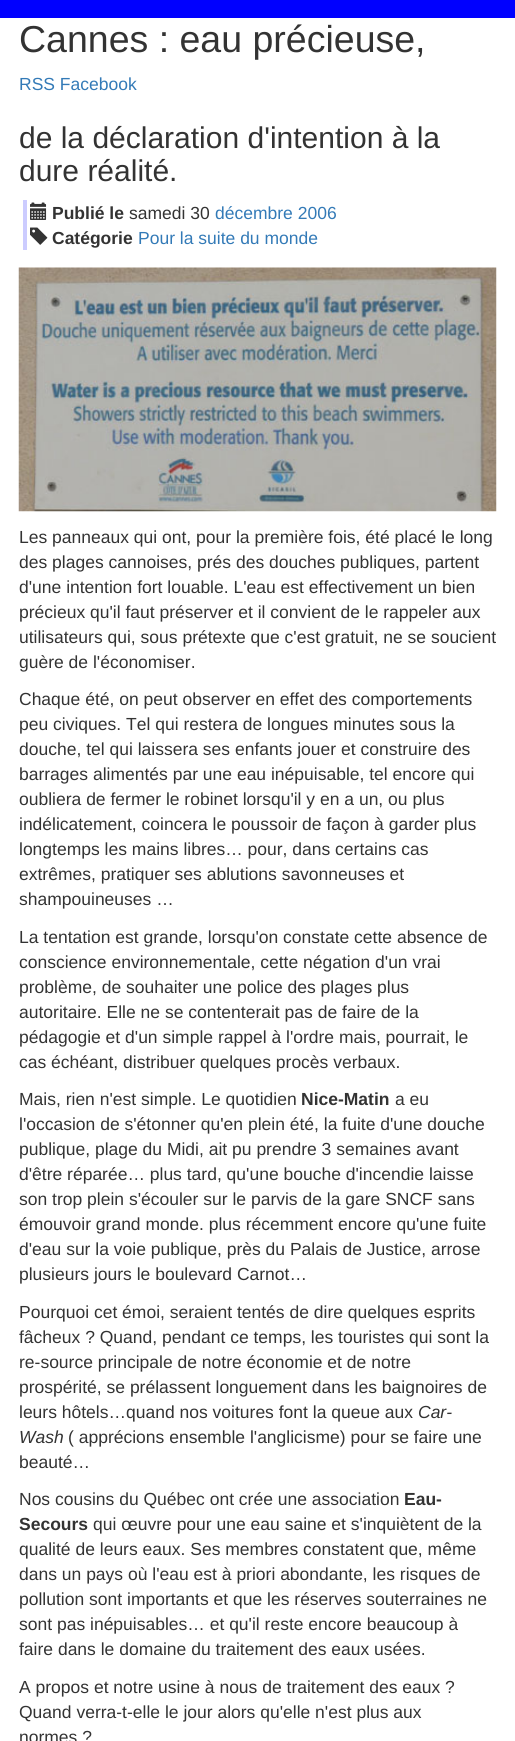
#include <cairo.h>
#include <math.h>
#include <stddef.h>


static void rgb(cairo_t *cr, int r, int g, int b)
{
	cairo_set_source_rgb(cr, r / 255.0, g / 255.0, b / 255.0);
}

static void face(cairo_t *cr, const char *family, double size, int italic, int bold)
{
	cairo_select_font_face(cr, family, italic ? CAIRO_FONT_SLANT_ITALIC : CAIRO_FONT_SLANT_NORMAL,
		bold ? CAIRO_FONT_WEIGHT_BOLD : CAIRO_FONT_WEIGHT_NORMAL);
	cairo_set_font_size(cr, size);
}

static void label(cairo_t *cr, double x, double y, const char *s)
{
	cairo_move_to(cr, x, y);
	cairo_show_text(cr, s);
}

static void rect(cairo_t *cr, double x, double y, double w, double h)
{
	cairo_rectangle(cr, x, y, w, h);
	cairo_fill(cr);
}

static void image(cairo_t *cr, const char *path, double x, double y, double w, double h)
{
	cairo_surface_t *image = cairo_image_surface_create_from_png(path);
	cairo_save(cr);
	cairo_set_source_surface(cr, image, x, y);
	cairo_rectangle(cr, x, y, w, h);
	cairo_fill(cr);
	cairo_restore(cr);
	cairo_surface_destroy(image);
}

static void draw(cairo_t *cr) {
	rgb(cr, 0, 0, 255);
	cairo_paint(cr);
	rgb(cr, 255, 255, 255);
	rect(cr, 0, 18, 515, 1723);
	face(cr, "Liberation Sans", 37.5, 0, 0);
	rgb(cr, 51, 51, 51);
	label(cr, 19, 52, "Cannes : eau précieuse,");
	face(cr, "Liberation Sans", 17.5, 0, 0);
	rgb(cr, 51, 122, 183);
	label(cr, 19, 90, "RSS Facebook");
	face(cr, "Liberation Sans", 30, 0, 0);
	rgb(cr, 51, 51, 51);
	label(cr, 19, 148, "de la déclaration d'intention à la");
	label(cr, 19, 181, "dure réalité.");
	rgb(cr, 204, 204, 255);
	rect(cr, 23, 200, 4, 50);
	image(cr, "image0.png", 30, 202, 17, 18);
	face(cr, "Liberation Sans", 17.5, 0, 1);
	rgb(cr, 51, 51, 51);
	label(cr, 52, 219, "Publié le");
	face(cr, "Liberation Sans", 17.5, 0, 0);
	label(cr, 129, 219, "samedi 30");
	rgb(cr, 51, 122, 183);
	label(cr, 215, 219, "décembre 2006");
	image(cr, "image1.png", 30, 227, 18, 18);
	face(cr, "Liberation Sans", 17.5, 0, 1);
	rgb(cr, 51, 51, 51);
	label(cr, 52, 244, "Catégorie");
	face(cr, "Liberation Sans", 17.5, 0, 0);
	rgb(cr, 51, 122, 183);
	label(cr, 138, 244, "Pour la suite du monde");
	image(cr, "image2.png", 18, 267, 479, 245);
	rgb(cr, 51, 51, 51);
	label(cr, 19, 543, "Les panneaux qui ont, pour la première fois, été placé le long");
	label(cr, 19, 568, "des plages cannoises, prés des douches publiques, partent");
	label(cr, 19, 593, "d'une intention fort louable. L'eau est effectivement un bien");
	label(cr, 19, 618, "précieux qu'il faut préserver et il convient de le rappeler aux");
	label(cr, 19, 643, "utilisateurs qui, sous prétexte que c'est gratuit, ne se soucient");
	label(cr, 19, 668, "guère de l'économiser.");
	label(cr, 19, 705, "Chaque été, on peut observer en effet des comportements");
	label(cr, 19, 730, "peu civiques. Tel qui restera de longues minutes sous la");
	label(cr, 19, 755, "douche, tel qui laissera ses enfants jouer et construire des");
	label(cr, 19, 780, "barrages alimentés par une eau inépuisable, tel encore qui");
	label(cr, 19, 805, "oubliera de fermer le robinet lorsqu'il y en a un, ou plus");
	label(cr, 19, 830, "indélicatement, coincera le poussoir de façon à garder plus");
	label(cr, 19, 855, "longtemps les mains libres… pour, dans certains cas");
	label(cr, 19, 880, "extrêmes, pratiquer ses ablutions savonneuses et");
	label(cr, 19, 905, "shampouineuses …");
	label(cr, 19, 943, "La tentation est grande, lorsqu'on constate cette absence de");
	label(cr, 19, 968, "conscience environnementale, cette négation d'un vrai");
	label(cr, 19, 993, "problème, de souhaiter une police des plages plus");
	label(cr, 19, 1018, "autoritaire. Elle ne se contenterait pas de faire de la");
	label(cr, 19, 1043, "pédagogie et d'un simple rappel à l'ordre mais, pourrait, le");
	label(cr, 19, 1068, "cas échéant, distribuer quelques procès verbaux.");
	label(cr, 19, 1105, "Mais, rien n'est simple. Le quotidien");
	face(cr, "Liberation Sans", 17.5, 0, 1);
	label(cr, 301, 1105, "Nice-Matin");
	face(cr, "Liberation Sans", 17.5, 0, 0);
	label(cr, 395, 1105, "a eu");
	label(cr, 19, 1130, "l'occasion de s'étonner qu'en plein été, la fuite d'une douche");
	label(cr, 19, 1155, "publique, plage du Midi, ait pu prendre 3 semaines avant");
	label(cr, 19, 1180, "d'être réparée… plus tard, qu'une bouche d'incendie laisse");
	label(cr, 19, 1205, "son trop plein s'écouler sur le parvis de la gare SNCF sans");
	label(cr, 19, 1230, "émouvoir grand monde. plus récemment encore qu'une fuite");
	label(cr, 19, 1255, "d'eau sur la voie publique, près du Palais de Justice, arrose");
	label(cr, 19, 1280, "plusieurs jours le boulevard Carnot…");
	label(cr, 19, 1318, "Pourquoi cet émoi, seraient tentés de dire quelques esprits");
	label(cr, 19, 1343, "fâcheux ? Quand, pendant ce temps, les touristes qui sont la");
	label(cr, 19, 1368, "re-source principale de notre économie et de notre");
	label(cr, 19, 1393, "prospérité, se prélassent longuement dans les baignoires de");
	label(cr, 19, 1418, "leurs hôtels…quand nos voitures font la queue aux");
	face(cr, "Liberation Sans", 17.5, 1, 0);
	label(cr, 418, 1418, "Car-");
	label(cr, 19, 1443, "Wash");
	face(cr, "Liberation Sans", 17.5, 0, 0);
	label(cr, 68, 1443, "( apprécions ensemble l'anglicisme) pour se faire une");
	label(cr, 19, 1468, "beauté…");
	label(cr, 19, 1505, "Nos cousins du Québec ont crée une association");
	face(cr, "Liberation Sans", 17.5, 0, 1);
	label(cr, 404, 1505, "Eau-");
	label(cr, 19, 1530, "Secours");
	face(cr, "Liberation Sans", 17.5, 0, 0);
	label(cr, 93, 1530, "qui œuvre pour une eau saine et s'inquiètent de la");
	label(cr, 19, 1555, "qualité de leurs eaux. Ses membres constatent que, même");
	label(cr, 19, 1580, "dans un pays où l'eau est à priori abondante, les risques de");
	label(cr, 19, 1605, "pollution sont importants et que les réserves souterraines ne");
	label(cr, 19, 1630, "sont pas inépuisables… et qu'il reste encore beaucoup à");
	label(cr, 19, 1655, "faire dans le domaine du traitement des eaux usées.");
	label(cr, 19, 1693, "A propos et notre usine à nous de traitement des eaux ?");
	label(cr, 19, 1718, "Quand verra-t-elle le jour alors qu'elle n'est plus aux");
	label(cr, 19, 1743, "normes ?");
}

int main(void) {
	cairo_surface_t *surface = cairo_image_surface_create(CAIRO_FORMAT_RGB24, 515, 1741);
	cairo_t *cr = cairo_create(surface);
	cairo_font_options_t *options = cairo_font_options_create();
	cairo_font_options_set_hint_metrics(options, CAIRO_HINT_METRICS_OFF);
	cairo_font_options_set_hint_style(options, CAIRO_HINT_STYLE_NONE);
	cairo_set_font_options(cr, options);
	cairo_set_miter_limit(cr, 4);
	draw(cr);
	cairo_surface_write_to_png(surface, "render.png");
	cairo_font_options_destroy(options);
	cairo_destroy(cr);
	cairo_surface_destroy(surface);
	return 0;
}
